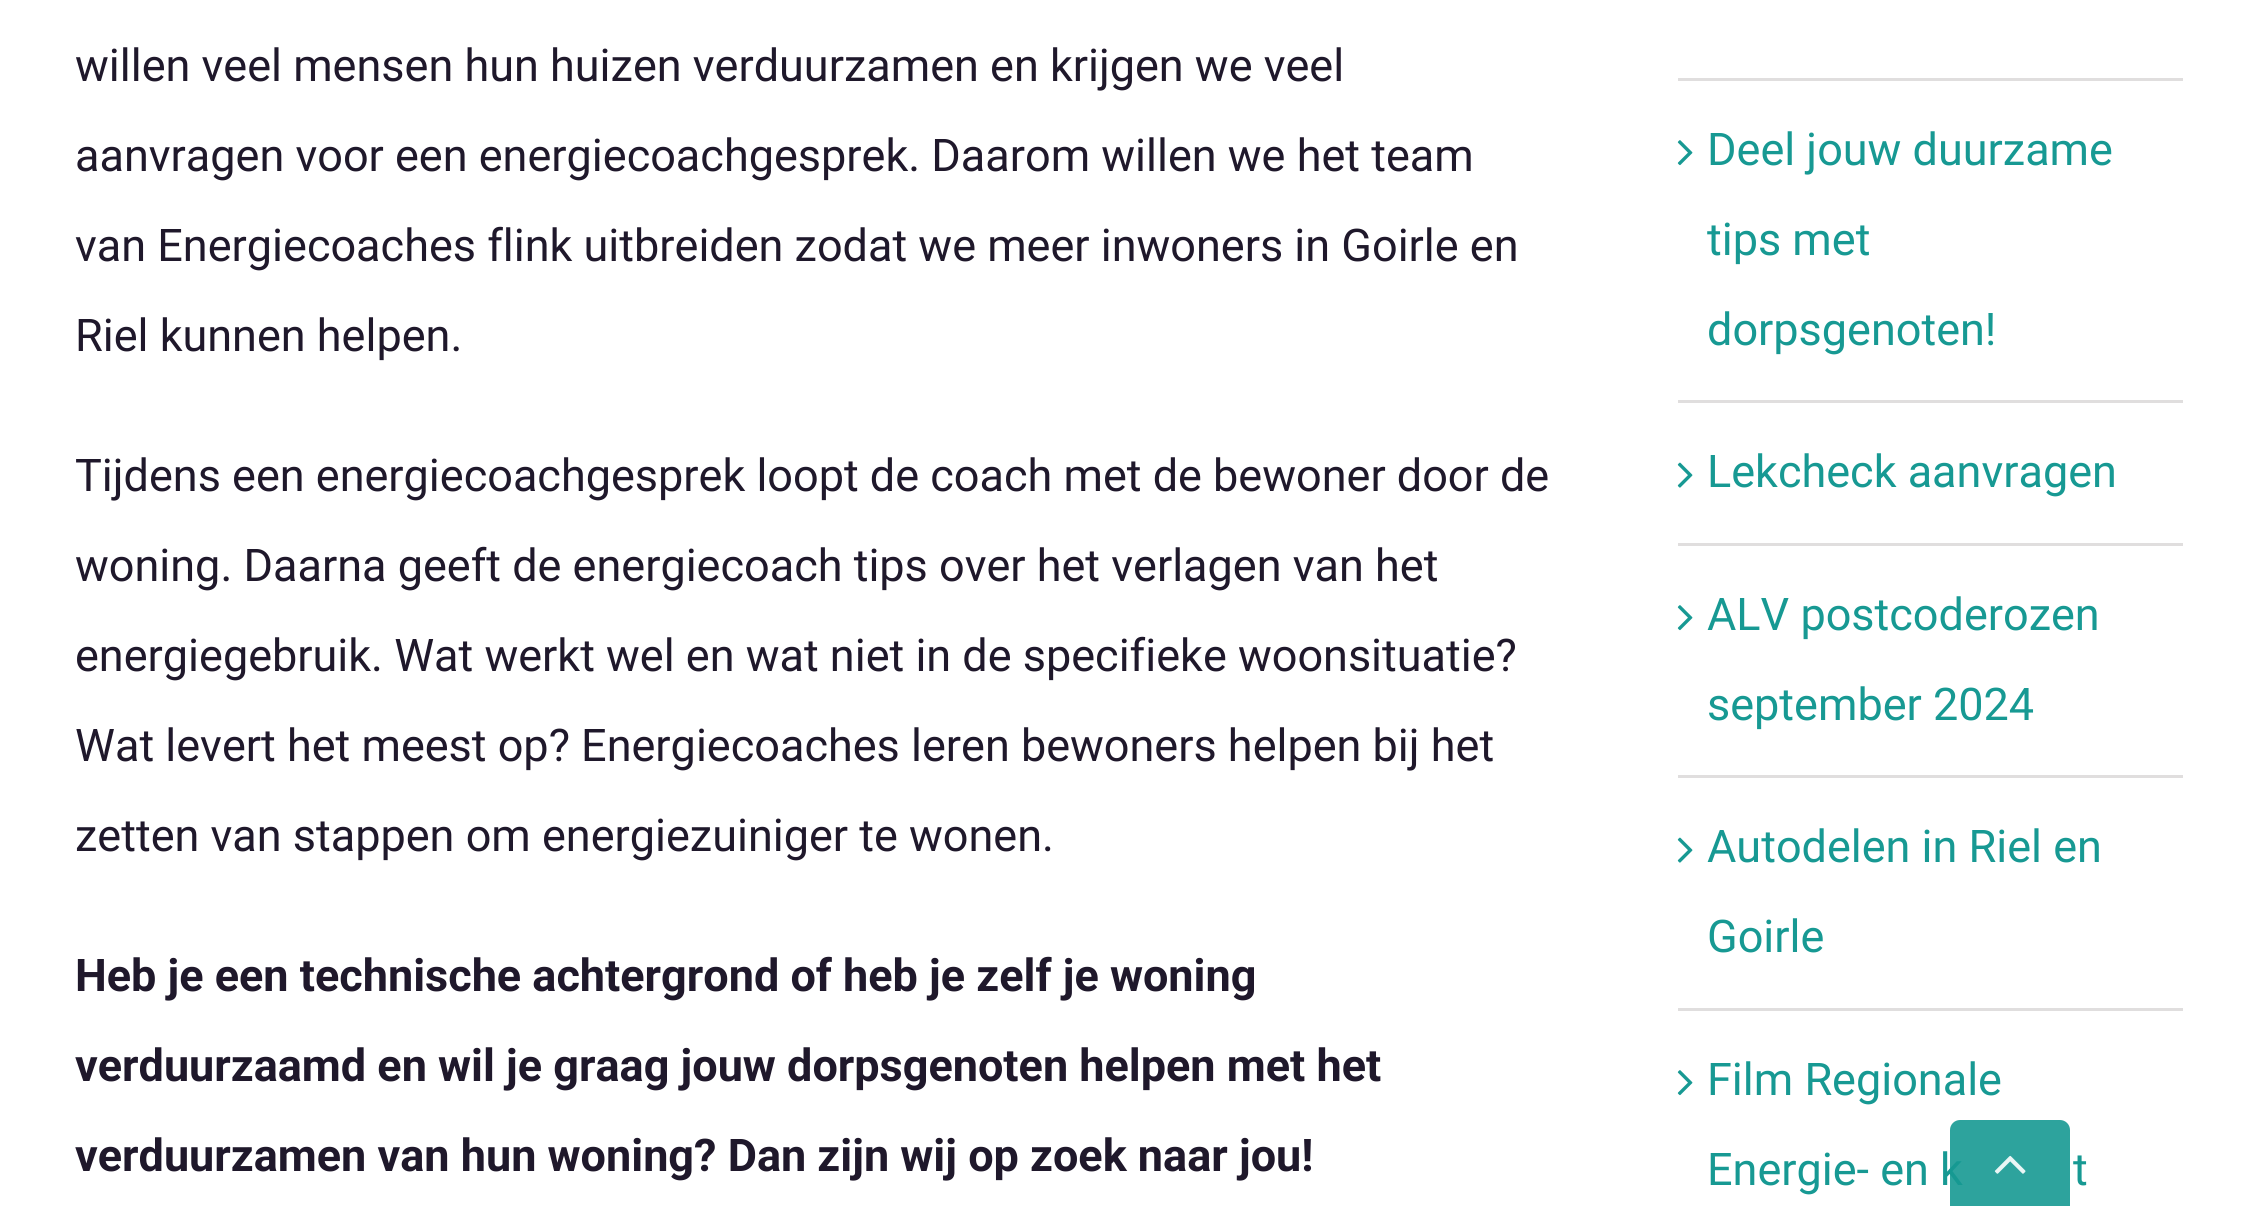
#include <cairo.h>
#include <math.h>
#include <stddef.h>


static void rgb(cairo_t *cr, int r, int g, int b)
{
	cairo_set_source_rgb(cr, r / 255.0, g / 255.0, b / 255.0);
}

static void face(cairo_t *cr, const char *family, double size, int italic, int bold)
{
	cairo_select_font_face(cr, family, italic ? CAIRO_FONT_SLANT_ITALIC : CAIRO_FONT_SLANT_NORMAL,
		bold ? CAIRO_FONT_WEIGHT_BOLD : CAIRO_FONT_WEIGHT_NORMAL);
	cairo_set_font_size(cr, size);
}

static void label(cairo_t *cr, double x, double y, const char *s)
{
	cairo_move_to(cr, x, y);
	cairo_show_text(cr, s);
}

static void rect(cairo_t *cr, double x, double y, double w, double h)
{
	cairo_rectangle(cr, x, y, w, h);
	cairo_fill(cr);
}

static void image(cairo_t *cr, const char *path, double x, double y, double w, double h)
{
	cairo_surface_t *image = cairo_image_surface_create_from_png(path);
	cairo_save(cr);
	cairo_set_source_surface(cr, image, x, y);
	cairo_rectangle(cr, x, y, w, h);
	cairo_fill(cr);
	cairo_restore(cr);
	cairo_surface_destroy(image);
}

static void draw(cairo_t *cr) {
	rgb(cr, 255, 255, 255);
	cairo_paint(cr);
	face(cr, "Roboto", 45, 0, 0);
	rgb(cr, 31, 24, 43);
	label(cr, 75, 81, "willen veel mensen hun huizen verduurzamen en krijgen we veel");
	label(cr, 75, 171, "aanvragen voor een energiecoachgesprek. Daarom willen we het team");
	label(cr, 75, 261, "van Energiecoaches flink uitbreiden zodat we meer inwoners in Goirle en");
	label(cr, 75, 351, "Riel kunnen helpen.");
	label(cr, 75, 491, "Tijdens een energiecoachgesprek loopt de coach met de bewoner door de");
	label(cr, 75, 581, "woning. Daarna geeft de energiecoach tips over het verlagen van het");
	label(cr, 75, 671, "energiegebruik. Wat werkt wel en wat niet in de specifieke woonsituatie?");
	label(cr, 75, 761, "Wat levert het meest op? Energiecoaches leren bewoners helpen bij het");
	label(cr, 75, 851, "zetten van stappen om energiezuiniger te wonen.");
	face(cr, "Roboto", 45, 0, 1);
	label(cr, 75, 991, "Heb je een technische achtergrond of heb je zelf je woning");
	label(cr, 75, 1081, "verduurzaamd en wil je graag jouw dorpsgenoten helpen met het");
	label(cr, 75, 1171, "verduurzamen van hun woning? Dan zijn wij op zoek naar jou!");
	rgb(cr, 224, 222, 222);
	rect(cr, 1678, 78, 505, 3);
	rect(cr, 1678, 400, 505, 3);
	image(cr, "image0.png", 1677, 140, 16, 26);
	face(cr, "Roboto", 45, 0, 0);
	rgb(cr, 23, 153, 147);
	label(cr, 1707, 165, "Deel jouw duurzame");
	label(cr, 1707, 255, "tips met");
	label(cr, 1707, 345, "dorpsgenoten!");
	rgb(cr, 224, 222, 222);
	rect(cr, 1678, 543, 505, 3);
	image(cr, "image1.png", 1677, 462, 16, 26);
	rgb(cr, 23, 153, 147);
	label(cr, 1707, 487, "Lekcheck aanvragen");
	rgb(cr, 224, 222, 222);
	rect(cr, 1678, 775, 505, 3);
	image(cr, "image0.png", 1677, 605, 16, 26);
	rgb(cr, 23, 153, 147);
	label(cr, 1707, 630, "ALV postcoderozen");
	label(cr, 1707, 720, "september 2024");
	rgb(cr, 224, 222, 222);
	rect(cr, 1678, 1008, 505, 3);
	image(cr, "image1.png", 1677, 837, 16, 26);
	rgb(cr, 23, 153, 147);
	label(cr, 1707, 862, "Autodelen in Riel en");
	label(cr, 1707, 952, "Goirle");
	image(cr, "image0.png", 1677, 1070, 16, 26);
	label(cr, 1707, 1095, "Film Regionale");
	label(cr, 1707, 1185, "Energie- en k");
	label(cr, 2073, 1185, "t");
	cairo_set_source_rgba(cr, 0.09, 0.6, 0.576, 0.9);
	cairo_new_path(cr);
	cairo_move_to(cr, 1960, 1120);
	cairo_line_to(cr, 2060, 1120);
	cairo_curve_to(cr, 2065.5, 1120, 2070, 1124.5, 2070, 1130);
	cairo_line_to(cr, 2070, 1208);
	cairo_line_to(cr, 1950, 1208);
	cairo_line_to(cr, 1950, 1130);
	cairo_curve_to(cr, 1950, 1124.5, 1954.5, 1120, 1960, 1120);
	cairo_close_path(cr);
	cairo_fill(cr);
	image(cr, "image2.png", 1994, 1155, 32, 19);
}

int main(void) {
	cairo_surface_t *surface = cairo_image_surface_create(CAIRO_FORMAT_RGB24, 2256, 1206);
	cairo_t *cr = cairo_create(surface);
	cairo_font_options_t *options = cairo_font_options_create();
	cairo_font_options_set_hint_metrics(options, CAIRO_HINT_METRICS_OFF);
	cairo_font_options_set_hint_style(options, CAIRO_HINT_STYLE_NONE);
	cairo_set_font_options(cr, options);
	cairo_set_miter_limit(cr, 4);
	draw(cr);
	cairo_surface_write_to_png(surface, "render.png");
	cairo_font_options_destroy(options);
	cairo_destroy(cr);
	cairo_surface_destroy(surface);
	return 0;
}
